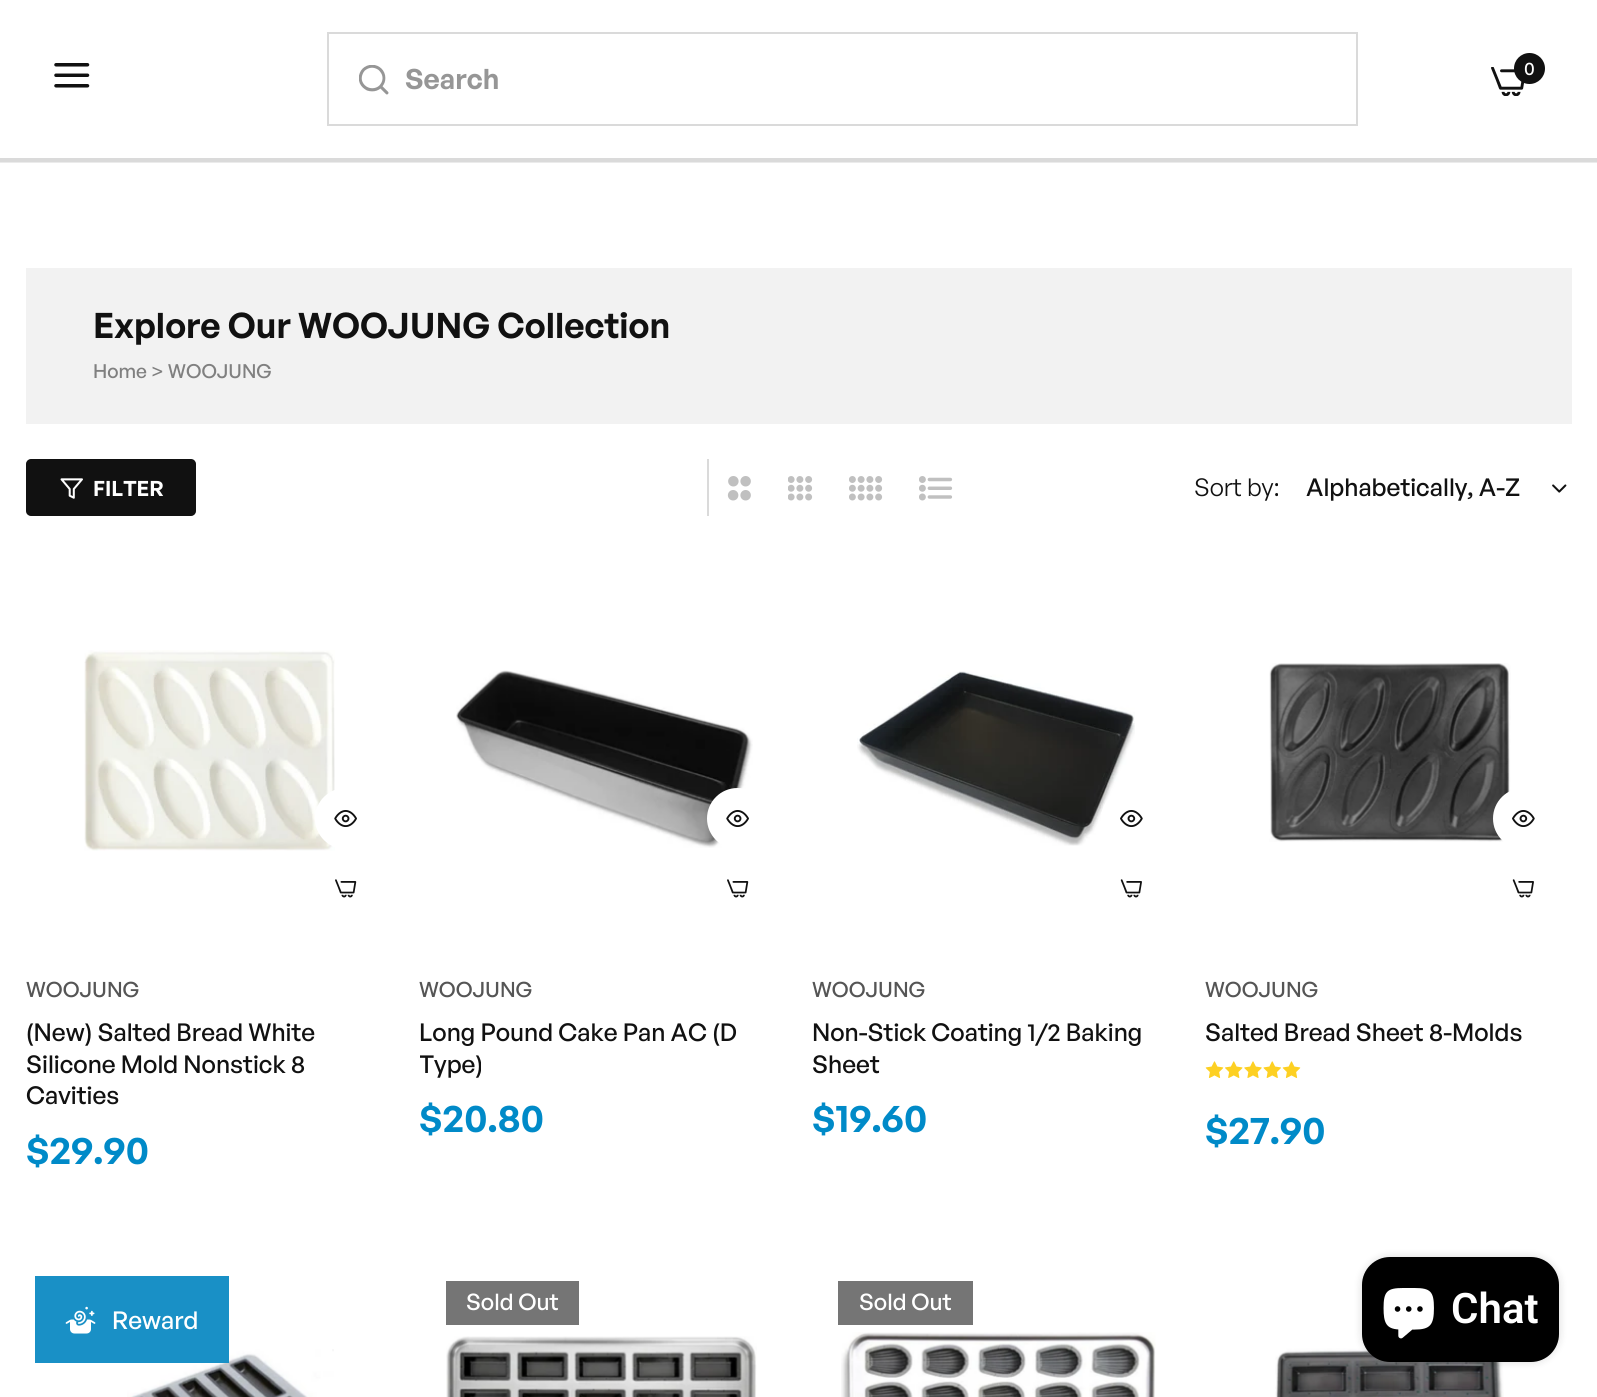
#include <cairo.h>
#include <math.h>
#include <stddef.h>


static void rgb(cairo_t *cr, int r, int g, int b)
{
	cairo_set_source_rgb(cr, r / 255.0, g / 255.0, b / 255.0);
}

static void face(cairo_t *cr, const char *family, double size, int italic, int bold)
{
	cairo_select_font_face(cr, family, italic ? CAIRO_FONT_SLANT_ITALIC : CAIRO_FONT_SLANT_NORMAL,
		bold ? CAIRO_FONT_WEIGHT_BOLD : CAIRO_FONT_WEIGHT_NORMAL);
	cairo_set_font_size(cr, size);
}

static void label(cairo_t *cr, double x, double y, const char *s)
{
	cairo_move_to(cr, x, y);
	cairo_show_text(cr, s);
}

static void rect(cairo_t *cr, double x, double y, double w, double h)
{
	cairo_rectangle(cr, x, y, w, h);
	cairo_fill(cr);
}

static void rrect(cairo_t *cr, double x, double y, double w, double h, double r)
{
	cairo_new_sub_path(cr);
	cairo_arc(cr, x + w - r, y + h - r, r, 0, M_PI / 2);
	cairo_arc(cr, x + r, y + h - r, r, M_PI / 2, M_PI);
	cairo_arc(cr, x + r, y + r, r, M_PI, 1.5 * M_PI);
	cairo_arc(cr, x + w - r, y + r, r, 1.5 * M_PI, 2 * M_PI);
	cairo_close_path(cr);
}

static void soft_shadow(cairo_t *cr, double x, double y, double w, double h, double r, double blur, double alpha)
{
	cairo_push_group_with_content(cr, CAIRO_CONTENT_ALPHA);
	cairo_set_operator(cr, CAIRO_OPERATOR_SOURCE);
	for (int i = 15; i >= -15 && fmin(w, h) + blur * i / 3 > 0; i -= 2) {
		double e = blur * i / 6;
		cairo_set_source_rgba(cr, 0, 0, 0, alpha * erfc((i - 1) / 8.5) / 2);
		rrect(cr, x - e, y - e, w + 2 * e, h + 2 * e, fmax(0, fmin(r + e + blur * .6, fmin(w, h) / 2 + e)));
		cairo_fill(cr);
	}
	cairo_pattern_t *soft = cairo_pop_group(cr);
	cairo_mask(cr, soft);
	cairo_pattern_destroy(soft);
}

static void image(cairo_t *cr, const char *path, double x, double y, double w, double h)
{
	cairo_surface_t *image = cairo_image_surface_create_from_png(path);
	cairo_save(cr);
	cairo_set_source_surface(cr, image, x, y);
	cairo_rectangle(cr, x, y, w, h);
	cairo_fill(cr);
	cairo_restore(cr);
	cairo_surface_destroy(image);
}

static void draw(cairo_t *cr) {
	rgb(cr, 255, 255, 255);
	cairo_paint(cr);
	rgb(cr, 235, 235, 235);
	rect(cr, 0, 162, 1597, 1);
	image(cr, "image0.png", 54, 63, 36, 25);
	cairo_rectangle(cr, 328, 33, 1029, 92);
	rgb(cr, 218, 218, 218);
	cairo_stroke(cr);
	image(cr, "image1.png", 359, 65, 30, 30);
	face(cr, "General Sans SemiBold", 28, 0, 0);
	rgb(cr, 150, 150, 150);
	label(cr, 405, 89, "Search");
	image(cr, "image2.png", 1491, 67, 33, 29);
	rgb(cr, 17, 17, 17);
	cairo_arc(cr, 1529.5, 68.5, 15.5, 0, 2 * M_PI);
	cairo_fill(cr);
	face(cr, "General Sans Medium", 18, 0, 0);
	rgb(cr, 255, 255, 255);
	label(cr, 1524, 75, "0");
	rgb(cr, 218, 218, 218);
	rect(cr, 0, 158, 1597, 4);
	rgb(cr, 242, 242, 242);
	rect(cr, 26, 268, 1546, 156);
	face(cr, "General Sans SemiBold", 35, 0, 0);
	rgb(cr, 17, 17, 17);
	label(cr, 93, 338, "Explore Our WOOJUNG Collection");
	face(cr, "General Sans Medium", 19.25, 0, 0);
	rgb(cr, 128, 128, 128);
	label(cr, 93, 378, "Home > WOOJUNG");
	rgb(cr, 218, 218, 218);
	rect(cr, 707, 459, 2, 57);
	rgb(cr, 17, 17, 17);
	rrect(cr, 27, 460, 168, 55, 4);
	cairo_fill_preserve(cr);
	cairo_stroke(cr);
	image(cr, "image3.png", 60, 478, 23, 21);
	face(cr, "General Sans SemiBold", 21, 0, 0);
	rgb(cr, 255, 255, 255);
	label(cr, 93, 496, "FILTER");
	image(cr, "image4.png", 727, 476, 24, 25);
	image(cr, "image5.png", 788, 476, 25, 25);
	image(cr, "image6.png", 849, 476, 34, 25);
	image(cr, "image7.png", 919, 476, 34, 25);
	face(cr, "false", 24.5, 0, 0);
	rgb(cr, 17, 17, 17);
	label(cr, 1194, 496, "Sort by:");
	face(cr, "General Sans Medium", 24.5, 0, 0);
	label(cr, 1306, 496, "Alphabetically, A-Z");
	image(cr, "image8.png", 1552, 484, 15, 9);
	image(cr, "image9.png", 84, 650, 251, 201);
	rgb(cr, 255, 255, 255);
	cairo_arc(cr, 345.5, 818.5, 30.5, 0, 2 * M_PI);
	cairo_fill(cr);
	image(cr, "image10.png", 334, 810, 23, 17);
	image(cr, "image11.png", 335, 879, 22, 19);
	face(cr, "General Sans Medium", 21, 0, 0);
	rgb(cr, 85, 85, 85);
	label(cr, 26, 997, "WOOJUNG");
	face(cr, "General Sans Medium", 24.5, 0, 0);
	rgb(cr, 17, 17, 17);
	label(cr, 26, 1041, "(New) Salted Bread White");
	label(cr, 26, 1073, "Silicone Mold Nonstick 8");
	label(cr, 26, 1104, "Cavities");
	face(cr, "General Sans SemiBold", 38.5, 0, 0);
	rgb(cr, 0, 138, 200);
	label(cr, 26, 1164, "$29.90");
	image(cr, "image12.png", 456, 670, 297, 178);
	rgb(cr, 255, 255, 255);
	cairo_arc(cr, 737.5, 818.5, 30.5, 0, 2 * M_PI);
	cairo_fill(cr);
	image(cr, "image10.png", 726, 810, 23, 17);
	image(cr, "image11.png", 727, 879, 22, 19);
	face(cr, "General Sans Medium", 21, 0, 0);
	rgb(cr, 85, 85, 85);
	label(cr, 419, 997, "WOOJUNG");
	face(cr, "General Sans Medium", 24.5, 0, 0);
	rgb(cr, 17, 17, 17);
	label(cr, 419, 1041, "Long Pound Cake Pan AC (D");
	cairo_save(cr);
	cairo_rectangle(cr, 420, 1017, 366, 63);
	cairo_clip(cr);
	label(cr, 419, 1073, "Type)");
	cairo_restore(cr);
	face(cr, "General Sans SemiBold", 38.5, 0, 0);
	rgb(cr, 0, 138, 200);
	label(cr, 419, 1132, "$20.80");
	image(cr, "image13.png", 857, 671, 278, 175);
	rgb(cr, 255, 255, 255);
	cairo_arc(cr, 1131.5, 818.5, 30.5, 0, 2 * M_PI);
	cairo_fill(cr);
	image(cr, "image14.png", 1120, 810, 23, 17);
	image(cr, "image15.png", 1120, 879, 22, 19);
	face(cr, "General Sans Medium", 21, 0, 0);
	rgb(cr, 85, 85, 85);
	label(cr, 812, 997, "WOOJUNG");
	face(cr, "General Sans Medium", 24.5, 0, 0);
	rgb(cr, 17, 17, 17);
	label(cr, 812, 1041, "Non-Stick Coating 1/2 Baking");
	label(cr, 812, 1073, "Sheet");
	face(cr, "General Sans SemiBold", 38.5, 0, 0);
	rgb(cr, 0, 138, 200);
	label(cr, 812, 1132, "$19.60");
	image(cr, "image16.png", 1269, 663, 242, 179);
	rgb(cr, 255, 255, 255);
	cairo_arc(cr, 1523.5, 818.5, 30.5, 0, 2 * M_PI);
	cairo_fill(cr);
	image(cr, "image14.png", 1512, 810, 23, 17);
	image(cr, "image15.png", 1512, 879, 22, 19);
	face(cr, "General Sans Medium", 21, 0, 0);
	rgb(cr, 85, 85, 85);
	label(cr, 1205, 997, "WOOJUNG");
	face(cr, "General Sans Medium", 24.5, 0, 0);
	rgb(cr, 17, 17, 17);
	label(cr, 1205, 1041, "Salted Bread Sheet 8-Molds");
	image(cr, "image17.png", 1205, 1061, 19, 17);
	image(cr, "image18.png", 1225, 1061, 18, 17);
	image(cr, "image19.png", 1244, 1061, 18, 17);
	image(cr, "image20.png", 1263, 1061, 18, 17);
	image(cr, "image17.png", 1282, 1061, 19, 17);
	face(cr, "General Sans SemiBold", 38.5, 0, 0);
	rgb(cr, 0, 138, 200);
	label(cr, 1205, 1144, "$27.90");
	rgb(cr, 117, 117, 117);
	rect(cr, 446, 1281, 133, 44);
	face(cr, "General Sans Medium", 22.75, 0, 0);
	rgb(cr, 255, 255, 255);
	label(cr, 466, 1310, "Sold Out");
	image(cr, "image21.png", 446, 1336, 311, 61);
	rgb(cr, 117, 117, 117);
	rect(cr, 838, 1281, 135, 44);
	rgb(cr, 255, 255, 255);
	label(cr, 859, 1310, "Sold Out");
	image(cr, "image22.png", 841, 1332, 315, 65);
	image(cr, "image23.png", 127, 1349, 207, 48);
	image(cr, "image24.png", 1275, 1348, 229, 49);
	rgb(cr, 25, 144, 198);
	rect(cr, 35, 1276, 194, 87);
	image(cr, "image25.png", 65, 1306, 31, 28);
	face(cr, "General Sans Medium", 24.5, 0, 0);
	rgb(cr, 255, 255, 255);
	label(cr, 112, 1329, "Reward");
	rgb(cr, 0, 0, 0);
	soft_shadow(cr, 1362, 1257, 197, 105, 28, 4.5, 0.15);
	rgb(cr, 0, 0, 0);
	rrect(cr, 1362, 1257, 197, 105, 28);
	cairo_fill(cr);
	image(cr, "image26.png", 1383, 1288, 51, 51);
	face(cr, "Roboto SemiBold", 42, 0, 0);
	rgb(cr, 255, 255, 255);
	label(cr, 1451, 1323, "Chat");
}

int main(void) {
	cairo_surface_t *surface = cairo_image_surface_create(CAIRO_FORMAT_RGB24, 1597, 1397);
	cairo_t *cr = cairo_create(surface);
	cairo_font_options_t *options = cairo_font_options_create();
	cairo_font_options_set_hint_metrics(options, CAIRO_HINT_METRICS_OFF);
	cairo_font_options_set_hint_style(options, CAIRO_HINT_STYLE_NONE);
	cairo_set_font_options(cr, options);
	cairo_set_miter_limit(cr, 4);
	draw(cr);
	cairo_surface_write_to_png(surface, "render.png");
	cairo_font_options_destroy(options);
	cairo_destroy(cr);
	cairo_surface_destroy(surface);
	return 0;
}
